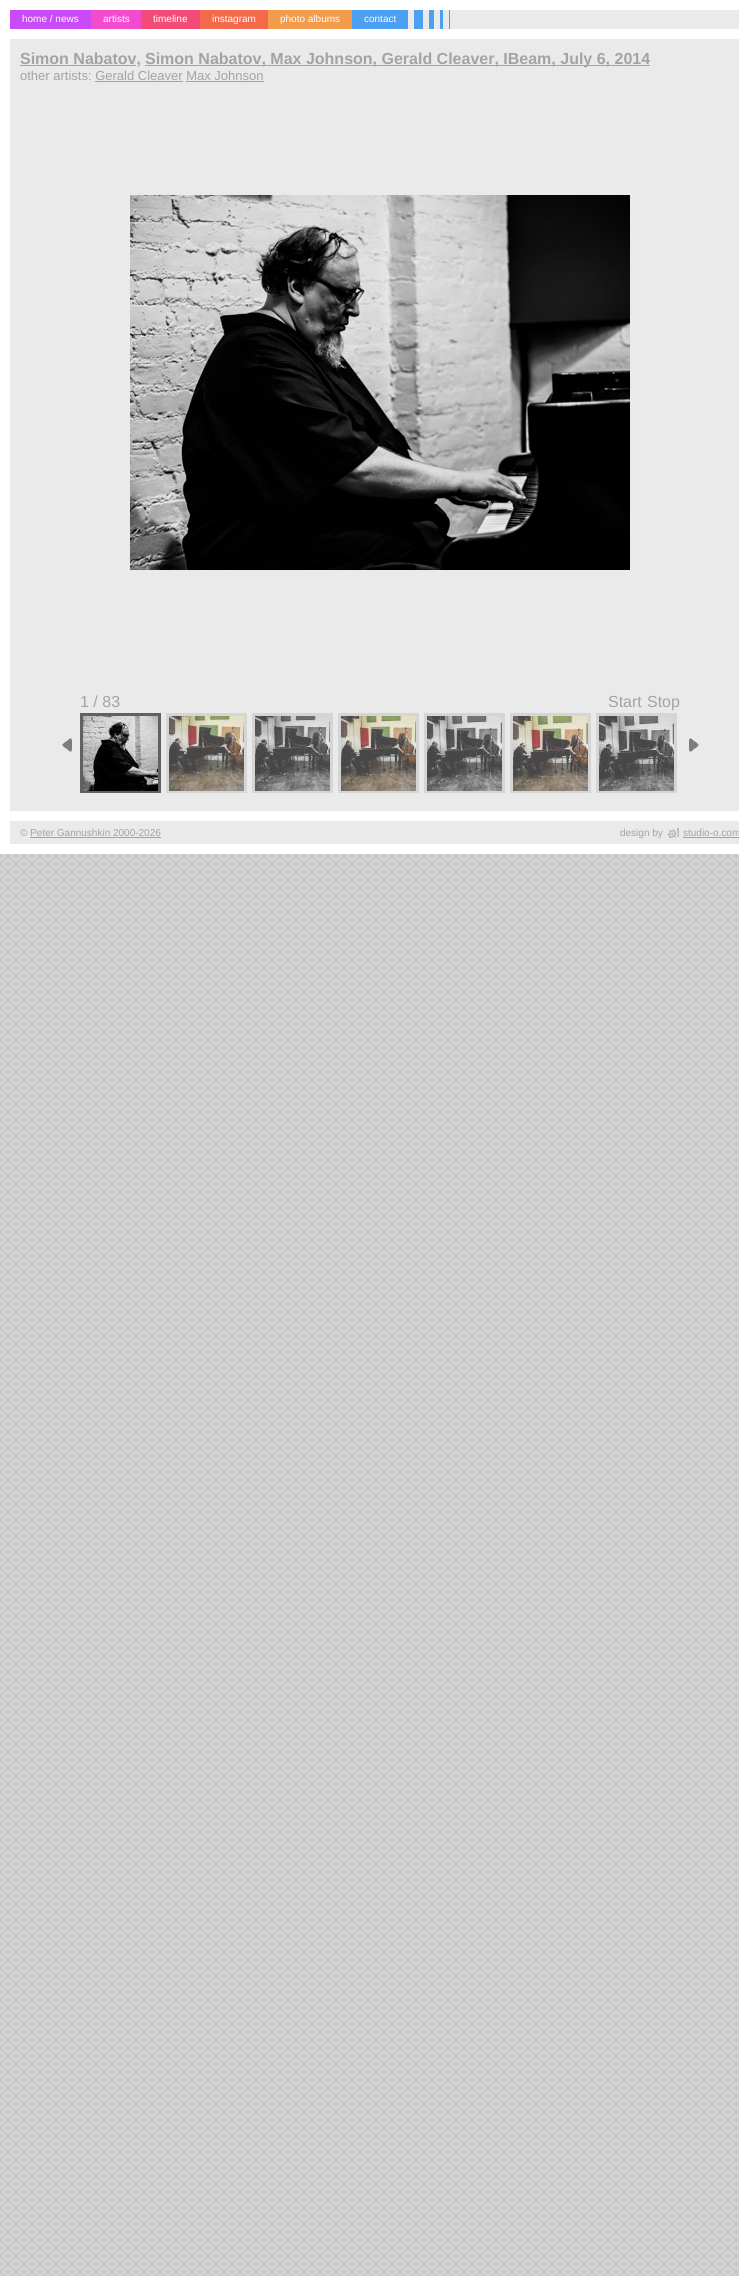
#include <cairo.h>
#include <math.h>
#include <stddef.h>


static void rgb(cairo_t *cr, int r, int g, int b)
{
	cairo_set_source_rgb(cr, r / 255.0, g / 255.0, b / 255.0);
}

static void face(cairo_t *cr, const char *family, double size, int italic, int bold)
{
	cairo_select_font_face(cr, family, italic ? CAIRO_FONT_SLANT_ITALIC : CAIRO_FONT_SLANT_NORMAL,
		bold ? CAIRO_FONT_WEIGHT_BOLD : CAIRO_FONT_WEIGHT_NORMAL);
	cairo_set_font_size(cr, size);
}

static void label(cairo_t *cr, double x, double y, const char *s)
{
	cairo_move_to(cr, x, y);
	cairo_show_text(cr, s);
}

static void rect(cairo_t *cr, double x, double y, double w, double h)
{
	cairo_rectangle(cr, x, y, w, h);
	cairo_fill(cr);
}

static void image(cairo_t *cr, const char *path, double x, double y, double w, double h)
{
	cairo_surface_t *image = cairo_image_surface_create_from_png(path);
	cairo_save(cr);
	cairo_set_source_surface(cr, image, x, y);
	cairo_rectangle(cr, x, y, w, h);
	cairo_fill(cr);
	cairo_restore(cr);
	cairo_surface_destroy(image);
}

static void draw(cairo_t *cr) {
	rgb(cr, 255, 255, 255);
	cairo_paint(cr);
	image(cr, "image0.png", 0, 854, 739, 1422);
	rgb(cr, 234, 234, 234);
	rect(cr, 10, 10, 729, 834);
	rgb(cr, 255, 255, 255);
	rect(cr, 10, 29, 729, 10);
	rgb(cr, 201, 74, 247);
	rect(cr, 10, 10, 81, 19);
	face(cr, "Liberation Sans", 10, 0, 0);
	rgb(cr, 255, 255, 255);
	label(cr, 22, 22, "home / news");
	rgb(cr, 242, 75, 205);
	rect(cr, 91, 10, 50, 19);
	rgb(cr, 255, 255, 255);
	label(cr, 103, 22, "artists");
	rgb(cr, 242, 75, 119);
	rect(cr, 141, 10, 59, 19);
	rgb(cr, 255, 255, 255);
	label(cr, 153, 22, "timeline");
	rgb(cr, 242, 106, 75);
	rect(cr, 200, 10, 68, 19);
	rgb(cr, 255, 255, 255);
	label(cr, 212, 22, "instagram");
	rgb(cr, 242, 156, 75);
	rect(cr, 268, 10, 84, 19);
	rgb(cr, 255, 255, 255);
	label(cr, 280, 22, "photo albums");
	rgb(cr, 75, 160, 242);
	rect(cr, 352, 10, 56, 19);
	rgb(cr, 255, 255, 255);
	label(cr, 364, 22, "contact");
	image(cr, "image1.png", 414, 10, 36, 19);
	rgb(cr, 164, 163, 163);
	rect(cr, 20, 65, 116, 1);
	face(cr, "Liberation Sans", 16, 0, 1);
	label(cr, 20, 64, "Simon Nabatov,");
	rect(cr, 145, 65, 505, 1);
	label(cr, 145, 64, "Simon Nabatov, Max Johnson, Gerald Cleaver, IBeam, July 6, 2014");
	face(cr, "Liberation Sans", 13, 0, 0);
	label(cr, 20, 80, "other artists: Gerald Cleaver Max Johnson");
	rect(cr, 95, 81, 88, 1);
	rect(cr, 186, 81, 78, 1);
	image(cr, "image2.png", 130, 195, 500, 375);
	face(cr, "Liberation Sans", 16, 0, 0);
	label(cr, 80, 707, "1 / 83");
	label(cr, 608, 707, "Start");
	label(cr, 647, 707, "Stop");
	image(cr, "image3.png", 62, 738, 10, 14);
	cairo_save(cr);
	cairo_rectangle(cr, 80, 713, 600, 80);
	cairo_clip(cr);
	cairo_rectangle(cr, 81.5, 714.5, 78, 78);
	rgb(cr, 97, 97, 97);
	cairo_set_line_width(cr, 3);
	cairo_stroke(cr);
	cairo_restore(cr);
	image(cr, "image4.png", 83, 716, 75, 75);
	cairo_save(cr);
	cairo_rectangle(cr, 80, 713, 600, 80);
	cairo_clip(cr);
	cairo_rectangle(cr, 167.5, 714.5, 78, 78);
	rgb(cr, 213, 213, 213);
	cairo_set_line_width(cr, 3);
	cairo_stroke(cr);
	cairo_restore(cr);
	image(cr, "image5.png", 169, 716, 75, 75);
	cairo_save(cr);
	cairo_rectangle(cr, 80, 713, 600, 80);
	cairo_clip(cr);
	cairo_rectangle(cr, 253.5, 714.5, 78, 78);
	rgb(cr, 213, 213, 213);
	cairo_set_line_width(cr, 3);
	cairo_stroke(cr);
	cairo_restore(cr);
	image(cr, "image6.png", 255, 716, 75, 75);
	cairo_save(cr);
	cairo_rectangle(cr, 80, 713, 600, 80);
	cairo_clip(cr);
	cairo_rectangle(cr, 339.5, 714.5, 78, 78);
	rgb(cr, 213, 213, 213);
	cairo_set_line_width(cr, 3);
	cairo_stroke(cr);
	cairo_restore(cr);
	image(cr, "image7.png", 341, 716, 75, 75);
	cairo_save(cr);
	cairo_rectangle(cr, 80, 713, 600, 80);
	cairo_clip(cr);
	cairo_rectangle(cr, 425.5, 714.5, 78, 78);
	rgb(cr, 213, 213, 213);
	cairo_set_line_width(cr, 3);
	cairo_stroke(cr);
	cairo_restore(cr);
	image(cr, "image8.png", 427, 716, 75, 75);
	cairo_save(cr);
	cairo_rectangle(cr, 80, 713, 600, 80);
	cairo_clip(cr);
	cairo_rectangle(cr, 511.5, 714.5, 78, 78);
	rgb(cr, 213, 213, 213);
	cairo_set_line_width(cr, 3);
	cairo_stroke(cr);
	cairo_restore(cr);
	image(cr, "image9.png", 513, 716, 75, 75);
	cairo_save(cr);
	cairo_rectangle(cr, 80, 713, 600, 80);
	cairo_clip(cr);
	cairo_rectangle(cr, 597.5, 714.5, 78, 78);
	rgb(cr, 213, 213, 213);
	cairo_set_line_width(cr, 3);
	cairo_stroke(cr);
	cairo_restore(cr);
	image(cr, "image10.png", 599, 716, 75, 75);
	image(cr, "image11.png", 689, 738, 10, 14);
	rgb(cr, 255, 255, 255);
	rect(cr, 10, 811, 729, 10);
	face(cr, "Liberation Sans", 10, 0, 0);
	rgb(cr, 164, 163, 163);
	label(cr, 20, 836, "© Peter Gannushkin 2000-2026");
	rect(cr, 30, 837, 131, 1);
	label(cr, 620, 836, "design by");
	image(cr, "image12.png", 667, 828, 12, 11);
	label(cr, 683, 836, "studio-o.com");
	rect(cr, 683, 837, 56, 1);
}

int main(void) {
	cairo_surface_t *surface = cairo_image_surface_create(CAIRO_FORMAT_RGB24, 739, 2276);
	cairo_t *cr = cairo_create(surface);
	cairo_font_options_t *options = cairo_font_options_create();
	cairo_font_options_set_hint_metrics(options, CAIRO_HINT_METRICS_OFF);
	cairo_font_options_set_hint_style(options, CAIRO_HINT_STYLE_NONE);
	cairo_set_font_options(cr, options);
	cairo_set_miter_limit(cr, 4);
	draw(cr);
	cairo_surface_write_to_png(surface, "render.png");
	cairo_font_options_destroy(options);
	cairo_destroy(cr);
	cairo_surface_destroy(surface);
	return 0;
}
